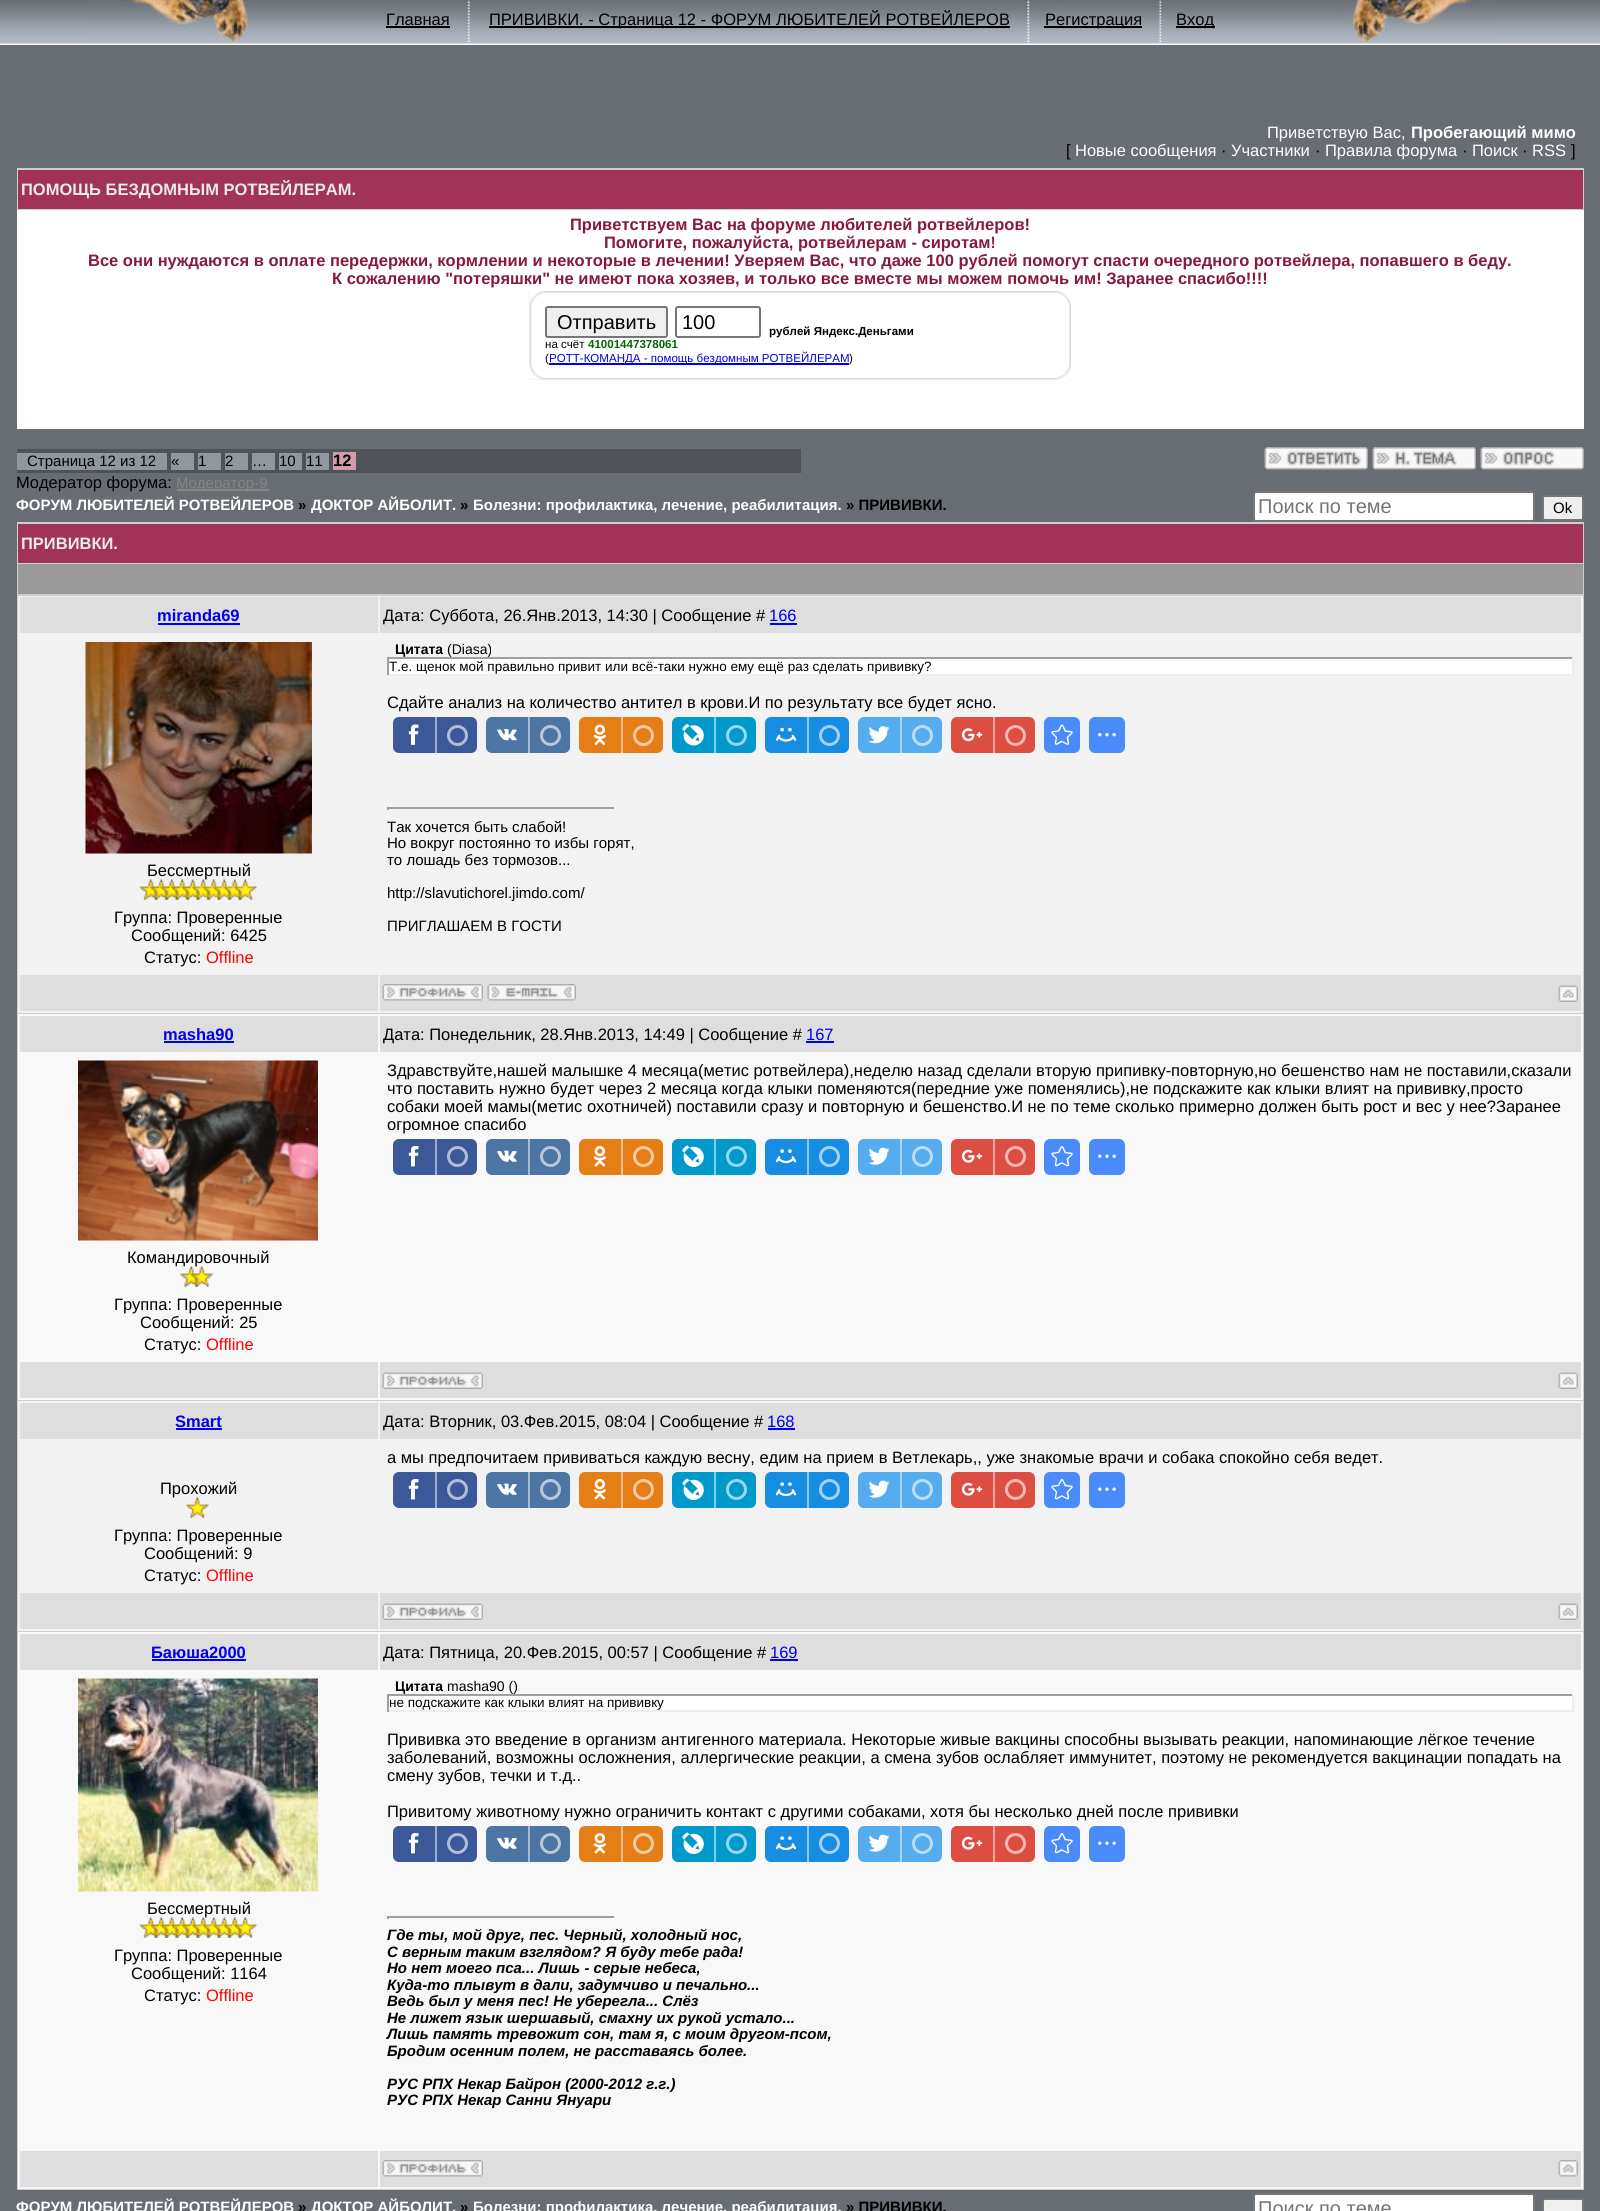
#include <cairo.h>
#include <math.h>
#include <stddef.h>


static void rgb(cairo_t *cr, int r, int g, int b)
{
	cairo_set_source_rgb(cr, r / 255.0, g / 255.0, b / 255.0);
}

static void face(cairo_t *cr, const char *family, double size, int italic, int bold)
{
	cairo_select_font_face(cr, family, italic ? CAIRO_FONT_SLANT_ITALIC : CAIRO_FONT_SLANT_NORMAL,
		bold ? CAIRO_FONT_WEIGHT_BOLD : CAIRO_FONT_WEIGHT_NORMAL);
	cairo_set_font_size(cr, size);
}

static void label(cairo_t *cr, double x, double y, const char *s)
{
	cairo_move_to(cr, x, y);
	cairo_show_text(cr, s);
}

static void rect(cairo_t *cr, double x, double y, double w, double h)
{
	cairo_rectangle(cr, x, y, w, h);
	cairo_fill(cr);
}

static void rrect(cairo_t *cr, double x, double y, double w, double h, double r)
{
	cairo_new_sub_path(cr);
	cairo_arc(cr, x + w - r, y + h - r, r, 0, M_PI / 2);
	cairo_arc(cr, x + r, y + h - r, r, M_PI / 2, M_PI);
	cairo_arc(cr, x + r, y + r, r, M_PI, 1.5 * M_PI);
	cairo_arc(cr, x + w - r, y + r, r, 1.5 * M_PI, 2 * M_PI);
	cairo_close_path(cr);
}

static void image(cairo_t *cr, const char *path, double x, double y, double w, double h)
{
	cairo_surface_t *image = cairo_image_surface_create_from_png(path);
	cairo_save(cr);
	cairo_set_source_surface(cr, image, x, y);
	cairo_rectangle(cr, x, y, w, h);
	cairo_fill(cr);
	cairo_restore(cr);
	cairo_surface_destroy(image);
}

static void draw(cairo_t *cr) {
	rgb(cr, 104, 109, 115);
	cairo_paint(cr);
	image(cr, "image0.png", 0, 2, 1600, 43);
	image(cr, "image1.png", 89, 0, 1407, 44);
	face(cr, "Liberation Sans", 16.5, 0, 0);
	rgb(cr, 0, 0, 0);
	label(cr, 386, 25, "Главная");
	rect(cr, 386, 26, 64, 2);
	image(cr, "image2.png", 467, 0, 3, 42);
	rect(cr, 489, 26, 521, 2);
	label(cr, 489, 25, "ПРИВИВКИ. - Страница 12 - ФОРУМ ЛЮБИТЕЛЕЙ РОТВЕЙЛЕРОВ");
	image(cr, "image3.png", 1027, 0, 3, 42);
	rect(cr, 1044, 26, 98, 2);
	label(cr, 1045, 25, "Регистрация");
	image(cr, "image4.png", 1159, 0, 3, 42);
	rect(cr, 1176, 26, 39, 2);
	label(cr, 1176, 25, "Вход");
	rgb(cr, 255, 255, 255);
	label(cr, 1267, 138, "Приветствую Вас,");
	face(cr, "Liberation Sans", 16.5, 0, 1);
	label(cr, 1411, 138, "Пробегающий мимо");
	face(cr, "Liberation Sans", 16.5, 0, 0);
	rgb(cr, 0, 0, 0);
	label(cr, 1066, 156, "[");
	rgb(cr, 255, 255, 255);
	label(cr, 1075, 156, "Новые сообщения");
	rgb(cr, 0, 0, 0);
	label(cr, 1221, 156, "·");
	rgb(cr, 255, 255, 255);
	label(cr, 1231, 156, "Участники");
	rgb(cr, 0, 0, 0);
	label(cr, 1315, 156, "·");
	rgb(cr, 255, 255, 255);
	label(cr, 1325, 156, "Правила форума");
	rgb(cr, 0, 0, 0);
	label(cr, 1462, 156, "·");
	rgb(cr, 255, 255, 255);
	label(cr, 1472, 156, "Поиск");
	rgb(cr, 0, 0, 0);
	label(cr, 1522, 156, "·");
	rgb(cr, 255, 255, 255);
	label(cr, 1532, 156, "RSS");
	rgb(cr, 0, 0, 0);
	label(cr, 1571, 156, "]");
	rgb(cr, 203, 206, 210);
	rect(cr, 17, 168, 1567, 42);
	rgb(cr, 160, 51, 87);
	rect(cr, 18, 170, 1565, 39);
	face(cr, "Liberation Sans", 16.5, 0, 1);
	rgb(cr, 235, 235, 235);
	label(cr, 21, 195, "ПОМОЩЬ БЕЗДОМНЫМ РОТВЕЙЛЕРАМ.");
	rgb(cr, 255, 255, 255);
	rect(cr, 17, 210, 1567, 219);
	rgb(cr, 134, 25, 61);
	label(cr, 570, 230, "Приветствуем Вас на форуме любителей ротвейлеров!");
	label(cr, 604, 248, "Помогите, пожалуйста, ротвейлерам - сиротам!");
	label(cr, 88, 266, "Все они нуждаются в оплате передержки, кормлении и некоторые в лечении! Уверяем Вас, что даже 100 рублей помогут спасти очередного ротвейлера, попавшего в беду.");
	label(cr, 332, 284, "К сожалению \"потеряшки\" не имеют пока хозяев, и только все вместе мы можем помочь им! Заранее cпасибо!!!!");
	image(cr, "image5.png", 1056, 291, 15, 89);
	image(cr, "image6.png", 529, 364, 542, 16);
	image(cr, "image7.png", 529, 291, 15, 89);
	image(cr, "image8.png", 529, 291, 527, 15);
	rgb(cr, 239, 239, 239);
	rrect(cr, 546, 307, 121, 30, 2);
	cairo_fill_preserve(cr);
	rgb(cr, 118, 118, 118);
	cairo_stroke(cr);
	face(cr, "Liberation Sans", 20, 0, 0);
	rgb(cr, 0, 0, 0);
	label(cr, 557, 329, "Отправить");
	rrect(cr, 676, 307, 84, 30, 2);
	rgb(cr, 118, 118, 118);
	cairo_stroke(cr);
	rgb(cr, 0, 0, 0);
	label(cr, 682, 329, "100");
	face(cr, "Liberation Sans", 11.55, 0, 1);
	label(cr, 769, 335, "рублей Яндекс.Деньгами");
	face(cr, "Liberation Sans", 11.55, 0, 0);
	label(cr, 545, 348, "на счёт");
	face(cr, "Liberation Sans", 11.55, 0, 1);
	rgb(cr, 0, 102, 0);
	label(cr, 588, 348, "41001447378061");
	face(cr, "Liberation Sans", 11.55, 0, 0);
	rgb(cr, 0, 0, 0);
	label(cr, 545, 362, "(");
	rgb(cr, 0, 0, 238);
	rect(cr, 549, 363, 300, 2);
	label(cr, 549, 362, "РОТТ-КОМАНДА - помощь бездомным РОТВЕЙЛЕРАМ");
	rgb(cr, 0, 0, 0);
	label(cr, 849, 362, ")");
	rgb(cr, 79, 83, 87);
	rect(cr, 17, 449, 784, 24);
	rgb(cr, 145, 151, 159);
	rect(cr, 17, 453, 150, 17);
	face(cr, "Liberation Sans", 15, 0, 0);
	rgb(cr, 0, 0, 0);
	label(cr, 27, 466, "Страница 12 из 12");
	rgb(cr, 145, 151, 159);
	rect(cr, 171, 453, 23, 17);
	rgb(cr, 0, 0, 0);
	label(cr, 171, 466, "«");
	rgb(cr, 145, 151, 159);
	rect(cr, 198, 453, 23, 17);
	rgb(cr, 0, 0, 0);
	label(cr, 198, 466, "1");
	rgb(cr, 145, 151, 159);
	rect(cr, 225, 453, 23, 17);
	rgb(cr, 0, 0, 0);
	label(cr, 225, 466, "2");
	rgb(cr, 145, 151, 159);
	rect(cr, 252, 453, 23, 17);
	rgb(cr, 0, 0, 0);
	label(cr, 252, 466, "…");
	rgb(cr, 145, 151, 159);
	rect(cr, 279, 453, 23, 17);
	rgb(cr, 0, 0, 0);
	label(cr, 279, 466, "10");
	rgb(cr, 145, 151, 159);
	rect(cr, 306, 453, 23, 17);
	rgb(cr, 0, 0, 0);
	label(cr, 306, 466, "11");
	rgb(cr, 211, 156, 170);
	rect(cr, 333, 452, 23, 18);
	face(cr, "Liberation Sans", 16.5, 0, 1);
	rgb(cr, 0, 0, 0);
	label(cr, 333, 466, "12");
	image(cr, "image9.png", 1264, 447, 104, 23);
	image(cr, "image10.png", 1372, 447, 104, 23);
	image(cr, "image11.png", 1480, 447, 104, 23);
	face(cr, "Liberation Sans", 16.5, 0, 0);
	label(cr, 16, 488, "Модератор форума:");
	rgb(cr, 133, 133, 133);
	rect(cr, 177, 489, 92, 2);
	face(cr, "Liberation Sans", 15, 0, 0);
	label(cr, 176, 488, "Модератор-9");
	face(cr, "Liberation Sans", 15, 0, 1);
	rgb(cr, 255, 255, 255);
	label(cr, 16, 510, "ФОРУМ ЛЮБИТЕЛЕЙ РОТВЕЙЛЕРОВ");
	rgb(cr, 0, 0, 0);
	label(cr, 298, 510, "»");
	rgb(cr, 255, 255, 255);
	label(cr, 311, 510, "ДОКТОР АЙБОЛИТ.");
	rgb(cr, 0, 0, 0);
	label(cr, 460, 510, "»");
	rgb(cr, 255, 255, 255);
	label(cr, 473, 510, "Болезни: профилактика, лечение, реабилитация.");
	rgb(cr, 0, 0, 0);
	label(cr, 846, 510, "» ПРИВИВКИ.");
	rgb(cr, 255, 255, 255);
	rrect(cr, 1254, 492, 280, 29, 2);
	cairo_fill_preserve(cr);
	rgb(cr, 118, 118, 118);
	cairo_stroke(cr);
	face(cr, "Liberation Sans", 20, 0, 0);
	rgb(cr, 117, 117, 117);
	label(cr, 1258, 513, "Поиск по теме");
	rgb(cr, 239, 239, 239);
	rrect(cr, 1543, 496, 40, 24, 2);
	cairo_fill_preserve(cr);
	rgb(cr, 118, 118, 118);
	cairo_stroke(cr);
	face(cr, "Liberation Sans", 15, 0, 0);
	rgb(cr, 0, 0, 0);
	label(cr, 1553, 513, "Ok");
	rgb(cr, 203, 206, 210);
	rect(cr, 17, 522, 1567, 1668);
	rgb(cr, 160, 51, 87);
	rect(cr, 18, 524, 1565, 39);
	face(cr, "Liberation Sans", 16.5, 0, 1);
	rgb(cr, 235, 235, 235);
	label(cr, 21, 549, "ПРИВИВКИ.");
	rgb(cr, 154, 154, 154);
	rect(cr, 18, 564, 1565, 30);
	rgb(cr, 242, 242, 242);
	rect(cr, 18, 596, 1565, 417);
	rgb(cr, 222, 222, 222);
	rect(cr, 20, 597, 358, 36);
	rgb(cr, 0, 0, 238);
	label(cr, 157, 621, "miranda69");
	rect(cr, 158, 623, 82, 2);
	rgb(cr, 222, 222, 222);
	rect(cr, 380, 597, 1201, 36);
	face(cr, "Liberation Sans", 16.5, 0, 0);
	rgb(cr, 0, 0, 0);
	label(cr, 383, 621, "Дата: Суббота, 26.Янв.2013, 14:30 | Сообщение #");
	rgb(cr, 0, 0, 238);
	label(cr, 769, 621, "166");
	rect(cr, 770, 623, 27, 2);
	image(cr, "image12.png", 85, 642, 227, 212);
	rgb(cr, 0, 0, 0);
	label(cr, 147, 876, "Бессмертный");
	image(cr, "image13.png", 139, 879, 118, 21);
	label(cr, 114, 923, "Группа: Проверенные");
	label(cr, 131, 941, "Сообщений: 6425");
	label(cr, 144, 963, "Статус:");
	rgb(cr, 255, 0, 0);
	label(cr, 206, 963, "Offline");
	face(cr, "Liberation Sans", 14, 0, 1);
	rgb(cr, 0, 0, 0);
	label(cr, 395, 654, "Цитата");
	face(cr, "Liberation Sans", 14, 0, 0);
	label(cr, 447, 654, "(Diasa)");
	rgb(cr, 255, 255, 255);
	rect(cr, 389, 659, 1183, 15);
	rgb(cr, 159, 159, 159);
	rect(cr, 387, 657, 1187, 2);
	rgb(cr, 238, 238, 238);
	rect(cr, 1572, 657, 2, 18);
	rect(cr, 387, 674, 1187, 2);
	rgb(cr, 159, 159, 159);
	rect(cr, 387, 657, 2, 18);
	face(cr, "Liberation Sans", 13.5, 0, 0);
	rgb(cr, 0, 0, 0);
	label(cr, 389, 671, "Т.е. щенок мой правильно привит или всё-таки нужно ему ещё раз сделать прививку?");
	face(cr, "Liberation Sans", 16.5, 0, 0);
	label(cr, 387, 708, "Сдайте анализ на количество антител в крови.И по результату все будет ясно.");
	rgb(cr, 59, 89, 152);
	rrect(cr, 393, 717, 84, 36, 6);
	cairo_fill(cr);
	image(cr, "image14.png", 408, 724, 11, 21);
	rgb(cr, 157, 172, 204);
	rect(cr, 435, 717, 2, 36);
	cairo_arc(cr, 457.5, 735.5, 9, 0, 2 * M_PI);
	rgb(cr, 177, 189, 214);
	cairo_set_line_width(cr, 3);
	cairo_stroke(cr);
	rgb(cr, 77, 117, 163);
	rrect(cr, 486, 717, 84, 36, 6);
	cairo_fill(cr);
	image(cr, "image15.png", 497, 729, 20, 12);
	rgb(cr, 166, 186, 209);
	rect(cr, 528, 717, 2, 36);
	cairo_arc(cr, 550.5, 735.5, 9, 0, 2 * M_PI);
	rgb(cr, 184, 200, 218);
	cairo_stroke(cr);
	rgb(cr, 230, 126, 23);
	rrect(cr, 579, 717, 84, 36, 6);
	cairo_fill(cr);
	image(cr, "image16.png", 593, 724, 13, 21);
	rgb(cr, 243, 191, 139);
	rect(cr, 621, 717, 2, 36);
	cairo_arc(cr, 643.5, 735.5, 9, 0, 2 * M_PI);
	rgb(cr, 245, 203, 162);
	cairo_stroke(cr);
	rgb(cr, 0, 153, 204);
	rrect(cr, 672, 717, 84, 36, 6);
	cairo_fill(cr);
	image(cr, "image17.png", 682, 724, 22, 22);
	rgb(cr, 128, 204, 230);
	rect(cr, 714, 717, 2, 36);
	cairo_arc(cr, 736.5, 735.5, 9, 0, 2 * M_PI);
	rgb(cr, 153, 214, 235);
	cairo_stroke(cr);
	rgb(cr, 22, 141, 226);
	rrect(cr, 765, 717, 84, 36, 6);
	cairo_fill(cr);
	image(cr, "image18.png", 775, 727, 22, 15);
	rgb(cr, 139, 198, 241);
	rect(cr, 807, 717, 2, 36);
	cairo_arc(cr, 829.5, 735.5, 9, 0, 2 * M_PI);
	rgb(cr, 162, 209, 243);
	cairo_stroke(cr);
	rgb(cr, 85, 172, 238);
	rrect(cr, 858, 717, 84, 36, 6);
	cairo_fill(cr);
	image(cr, "image19.png", 868, 726, 22, 18);
	rgb(cr, 170, 214, 247);
	rect(cr, 900, 717, 2, 36);
	cairo_arc(cr, 922.5, 735.5, 9, 0, 2 * M_PI);
	rgb(cr, 187, 222, 248);
	cairo_stroke(cr);
	rgb(cr, 220, 78, 65);
	rrect(cr, 951, 717, 84, 36, 6);
	cairo_fill(cr);
	image(cr, "image20.png", 961, 728, 22, 14);
	rgb(cr, 238, 167, 160);
	rect(cr, 993, 717, 2, 36);
	cairo_arc(cr, 1015.5, 735.5, 9, 0, 2 * M_PI);
	rgb(cr, 241, 184, 179);
	cairo_stroke(cr);
	rgb(cr, 73, 139, 250);
	rrect(cr, 1044, 717, 36, 36, 6);
	cairo_fill(cr);
	image(cr, "image21.png", 1051, 724, 22, 21);
	rrect(cr, 1089, 717, 36, 36, 6);
	cairo_fill(cr);
	image(cr, "image22.png", 1098, 733, 18, 4);
	rgb(cr, 159, 159, 159);
	rect(cr, 387, 807, 228, 2);
	rgb(cr, 238, 238, 238);
	rect(cr, 614, 807, 2, 3);
	rgb(cr, 159, 159, 159);
	rect(cr, 387, 807, 2, 3);
	face(cr, "Liberation Sans", 15, 0, 0);
	rgb(cr, 0, 0, 0);
	label(cr, 387, 832, "Так хочется быть слабой!");
	label(cr, 387, 848, "Но вокруг постоянно то избы горят,");
	label(cr, 387, 865, "то лошадь без тормозов...");
	label(cr, 387, 898, "http://slavutichorel.jimdo.com/");
	label(cr, 387, 931, "ПРИГЛАШАЕМ В ГОСТИ");
	rgb(cr, 222, 222, 222);
	rect(cr, 20, 975, 358, 36);
	rect(cr, 380, 975, 1201, 36);
	image(cr, "image23.png", 382, 984, 101, 17);
	image(cr, "image24.png", 487, 984, 89, 17);
	image(cr, "image25.png", 1558, 985, 20, 17);
	rgb(cr, 248, 248, 248);
	rect(cr, 18, 1014, 1565, 386);
	rgb(cr, 222, 222, 222);
	rect(cr, 20, 1016, 358, 36);
	face(cr, "Liberation Sans", 16.5, 0, 1);
	rgb(cr, 0, 0, 238);
	label(cr, 163, 1040, "masha90");
	rect(cr, 164, 1041, 70, 2);
	rgb(cr, 222, 222, 222);
	rect(cr, 380, 1016, 1201, 36);
	face(cr, "Liberation Sans", 16.5, 0, 0);
	rgb(cr, 0, 0, 0);
	label(cr, 383, 1040, "Дата: Понедельник, 28.Янв.2013, 14:49 | Сообщение #");
	rgb(cr, 0, 0, 238);
	label(cr, 806, 1040, "167");
	rect(cr, 806, 1041, 28, 2);
	rgb(cr, 0, 0, 0);
	label(cr, 387, 1076, "Здравствуйте,нашей малышке 4 месяца(метис ротвейлера),неделю назад сделали вторую припивку-повторную,но бешенство нам не поставили,сказали");
	label(cr, 387, 1094, "что поставить нужно будет через 2 месяца когда клыки поменяются(передние уже поменялись),не подскажите как клыки влият на прививку,просто");
	label(cr, 387, 1112, "собаки моей мамы(метис охотничей) поставили сразу и повторную и бешенство.И не по теме сколько примерно должен быть рост и вес у нее?Заранее");
	label(cr, 387, 1130, "огромное спасибо");
	rgb(cr, 59, 89, 152);
	rrect(cr, 393, 1139, 84, 36, 6);
	cairo_fill(cr);
	image(cr, "image26.png", 408, 1146, 11, 21);
	rgb(cr, 157, 172, 204);
	rect(cr, 435, 1139, 2, 36);
	cairo_arc(cr, 457.5, 1156.5, 9, 0, 2 * M_PI);
	rgb(cr, 177, 189, 214);
	cairo_stroke(cr);
	rgb(cr, 77, 117, 163);
	rrect(cr, 486, 1139, 84, 36, 6);
	cairo_fill(cr);
	image(cr, "image27.png", 497, 1150, 20, 12);
	rgb(cr, 166, 186, 209);
	rect(cr, 528, 1139, 2, 36);
	cairo_arc(cr, 550.5, 1156.5, 9, 0, 2 * M_PI);
	rgb(cr, 184, 200, 218);
	cairo_stroke(cr);
	rgb(cr, 230, 126, 23);
	rrect(cr, 579, 1139, 84, 36, 6);
	cairo_fill(cr);
	image(cr, "image28.png", 593, 1146, 13, 21);
	rgb(cr, 243, 191, 139);
	rect(cr, 621, 1139, 2, 36);
	cairo_arc(cr, 643.5, 1156.5, 9, 0, 2 * M_PI);
	rgb(cr, 245, 203, 162);
	cairo_stroke(cr);
	rgb(cr, 0, 153, 204);
	rrect(cr, 672, 1139, 84, 36, 6);
	cairo_fill(cr);
	image(cr, "image29.png", 682, 1145, 22, 22);
	rgb(cr, 128, 204, 230);
	rect(cr, 714, 1139, 2, 36);
	cairo_arc(cr, 736.5, 1156.5, 9, 0, 2 * M_PI);
	rgb(cr, 153, 214, 235);
	cairo_stroke(cr);
	rgb(cr, 22, 141, 226);
	rrect(cr, 765, 1139, 84, 36, 6);
	cairo_fill(cr);
	image(cr, "image30.png", 775, 1149, 22, 15);
	rgb(cr, 139, 198, 241);
	rect(cr, 807, 1139, 2, 36);
	cairo_arc(cr, 829.5, 1156.5, 9, 0, 2 * M_PI);
	rgb(cr, 162, 209, 243);
	cairo_stroke(cr);
	rgb(cr, 85, 172, 238);
	rrect(cr, 858, 1139, 84, 36, 6);
	cairo_fill(cr);
	image(cr, "image31.png", 868, 1147, 22, 18);
	rgb(cr, 170, 214, 247);
	rect(cr, 900, 1139, 2, 36);
	cairo_arc(cr, 922.5, 1156.5, 9, 0, 2 * M_PI);
	rgb(cr, 187, 222, 248);
	cairo_stroke(cr);
	rgb(cr, 220, 78, 65);
	rrect(cr, 951, 1139, 84, 36, 6);
	cairo_fill(cr);
	image(cr, "image32.png", 961, 1149, 22, 14);
	rgb(cr, 238, 167, 160);
	rect(cr, 993, 1139, 2, 36);
	cairo_arc(cr, 1015.5, 1156.5, 9, 0, 2 * M_PI);
	rgb(cr, 241, 184, 179);
	cairo_stroke(cr);
	rgb(cr, 73, 139, 250);
	rrect(cr, 1044, 1139, 36, 36, 6);
	cairo_fill(cr);
	image(cr, "image33.png", 1051, 1146, 22, 21);
	rrect(cr, 1089, 1139, 36, 36, 6);
	cairo_fill(cr);
	image(cr, "image34.png", 1098, 1154, 18, 4);
	image(cr, "image35.png", 78, 1060, 240, 181);
	rgb(cr, 0, 0, 0);
	label(cr, 127, 1263, "Командировочный");
	image(cr, "image36.png", 179, 1266, 35, 21);
	label(cr, 114, 1310, "Группа: Проверенные");
	label(cr, 140, 1328, "Сообщений: 25");
	label(cr, 144, 1350, "Статус:");
	rgb(cr, 255, 0, 0);
	label(cr, 206, 1350, "Offline");
	rgb(cr, 222, 222, 222);
	rect(cr, 20, 1362, 358, 36);
	rect(cr, 380, 1362, 1201, 36);
	image(cr, "image37.png", 382, 1372, 101, 17);
	image(cr, "image25.png", 1558, 1372, 20, 17);
	rgb(cr, 242, 242, 242);
	rect(cr, 18, 1401, 1565, 230);
	rgb(cr, 222, 222, 222);
	rect(cr, 20, 1403, 358, 36);
	face(cr, "Liberation Sans", 16.5, 0, 1);
	rgb(cr, 0, 0, 238);
	label(cr, 175, 1427, "Smart");
	rect(cr, 176, 1428, 46, 2);
	rgb(cr, 222, 222, 222);
	rect(cr, 380, 1403, 1201, 36);
	face(cr, "Liberation Sans", 16.5, 0, 0);
	rgb(cr, 0, 0, 0);
	label(cr, 383, 1427, "Дата: Вторник, 03.Фев.2015, 08:04 | Сообщение #");
	rgb(cr, 0, 0, 238);
	label(cr, 767, 1427, "168");
	rect(cr, 768, 1428, 27, 2);
	rgb(cr, 0, 0, 0);
	label(cr, 387, 1463, "а мы предпочитаем прививаться каждую весну, едим на прием в Ветлекарь,, уже знакомые врачи и собака спокойно себя ведет.");
	rgb(cr, 59, 89, 152);
	rrect(cr, 393, 1472, 84, 36, 6);
	cairo_fill(cr);
	image(cr, "image26.png", 408, 1479, 11, 21);
	rgb(cr, 157, 172, 204);
	rect(cr, 435, 1472, 2, 36);
	cairo_arc(cr, 457.5, 1489.5, 9, 0, 2 * M_PI);
	rgb(cr, 177, 189, 214);
	cairo_stroke(cr);
	rgb(cr, 77, 117, 163);
	rrect(cr, 486, 1472, 84, 36, 6);
	cairo_fill(cr);
	image(cr, "image27.png", 497, 1483, 20, 12);
	rgb(cr, 166, 186, 209);
	rect(cr, 528, 1472, 2, 36);
	cairo_arc(cr, 550.5, 1489.5, 9, 0, 2 * M_PI);
	rgb(cr, 184, 200, 218);
	cairo_stroke(cr);
	rgb(cr, 230, 126, 23);
	rrect(cr, 579, 1472, 84, 36, 6);
	cairo_fill(cr);
	image(cr, "image28.png", 593, 1479, 13, 21);
	rgb(cr, 243, 191, 139);
	rect(cr, 621, 1472, 2, 36);
	cairo_arc(cr, 643.5, 1489.5, 9, 0, 2 * M_PI);
	rgb(cr, 245, 203, 162);
	cairo_stroke(cr);
	rgb(cr, 0, 153, 204);
	rrect(cr, 672, 1472, 84, 36, 6);
	cairo_fill(cr);
	image(cr, "image29.png", 682, 1478, 22, 22);
	rgb(cr, 128, 204, 230);
	rect(cr, 714, 1472, 2, 36);
	cairo_arc(cr, 736.5, 1489.5, 9, 0, 2 * M_PI);
	rgb(cr, 153, 214, 235);
	cairo_stroke(cr);
	rgb(cr, 22, 141, 226);
	rrect(cr, 765, 1472, 84, 36, 6);
	cairo_fill(cr);
	image(cr, "image30.png", 775, 1482, 22, 15);
	rgb(cr, 139, 198, 241);
	rect(cr, 807, 1472, 2, 36);
	cairo_arc(cr, 829.5, 1489.5, 9, 0, 2 * M_PI);
	rgb(cr, 162, 209, 243);
	cairo_stroke(cr);
	rgb(cr, 85, 172, 238);
	rrect(cr, 858, 1472, 84, 36, 6);
	cairo_fill(cr);
	image(cr, "image31.png", 868, 1480, 22, 18);
	rgb(cr, 170, 214, 247);
	rect(cr, 900, 1472, 2, 36);
	cairo_arc(cr, 922.5, 1489.5, 9, 0, 2 * M_PI);
	rgb(cr, 187, 222, 248);
	cairo_stroke(cr);
	rgb(cr, 220, 78, 65);
	rrect(cr, 951, 1472, 84, 36, 6);
	cairo_fill(cr);
	image(cr, "image32.png", 961, 1482, 22, 14);
	rgb(cr, 238, 167, 160);
	rect(cr, 993, 1472, 2, 36);
	cairo_arc(cr, 1015.5, 1489.5, 9, 0, 2 * M_PI);
	rgb(cr, 241, 184, 179);
	cairo_stroke(cr);
	rgb(cr, 73, 139, 250);
	rrect(cr, 1044, 1472, 36, 36, 6);
	cairo_fill(cr);
	image(cr, "image33.png", 1051, 1479, 22, 21);
	rrect(cr, 1089, 1472, 36, 36, 6);
	cairo_fill(cr);
	image(cr, "image34.png", 1098, 1487, 18, 4);
	rgb(cr, 0, 0, 0);
	label(cr, 160, 1494, "Прохожий");
	image(cr, "image38.png", 185, 1497, 24, 21);
	label(cr, 114, 1541, "Группа: Проверенные");
	label(cr, 144, 1559, "Сообщений: 9");
	label(cr, 144, 1581, "Статус:");
	rgb(cr, 255, 0, 0);
	label(cr, 206, 1581, "Offline");
	rgb(cr, 222, 222, 222);
	rect(cr, 20, 1593, 358, 36);
	rect(cr, 380, 1593, 1201, 36);
	image(cr, "image37.png", 382, 1603, 101, 17);
	image(cr, "image25.png", 1558, 1603, 20, 17);
	rgb(cr, 248, 248, 248);
	rect(cr, 18, 1632, 1565, 557);
	rgb(cr, 222, 222, 222);
	rect(cr, 20, 1634, 358, 36);
	face(cr, "Liberation Sans", 16.5, 0, 1);
	rgb(cr, 0, 0, 238);
	label(cr, 151, 1658, "Баюша2000");
	rect(cr, 152, 1659, 94, 2);
	rgb(cr, 222, 222, 222);
	rect(cr, 380, 1634, 1201, 36);
	face(cr, "Liberation Sans", 16.5, 0, 0);
	rgb(cr, 0, 0, 0);
	label(cr, 383, 1658, "Дата: Пятница, 20.Фев.2015, 00:57 | Сообщение #");
	rgb(cr, 0, 0, 238);
	label(cr, 770, 1658, "169");
	rect(cr, 770, 1659, 28, 2);
	image(cr, "image39.png", 78, 1678, 240, 214);
	rgb(cr, 0, 0, 0);
	label(cr, 147, 1914, "Бессмертный");
	image(cr, "image40.png", 139, 1917, 118, 21);
	label(cr, 114, 1961, "Группа: Проверенные");
	label(cr, 131, 1979, "Сообщений: 1164");
	label(cr, 144, 2001, "Статус:");
	rgb(cr, 255, 0, 0);
	label(cr, 206, 2001, "Offline");
	face(cr, "Liberation Sans", 14, 0, 1);
	rgb(cr, 0, 0, 0);
	label(cr, 395, 1691, "Цитата");
	face(cr, "Liberation Sans", 14, 0, 0);
	label(cr, 447, 1691, "masha90 ()");
	rgb(cr, 255, 255, 255);
	rect(cr, 389, 1696, 1183, 14);
	rgb(cr, 159, 159, 159);
	rect(cr, 387, 1694, 1187, 2);
	rgb(cr, 238, 238, 238);
	rect(cr, 1572, 1694, 2, 18);
	rect(cr, 387, 1710, 1187, 2);
	rgb(cr, 159, 159, 159);
	rect(cr, 387, 1694, 2, 18);
	face(cr, "Liberation Sans", 13.5, 0, 0);
	rgb(cr, 0, 0, 0);
	label(cr, 389, 1707, "не подскажите как клыки влият на прививку");
	face(cr, "Liberation Sans", 16.5, 0, 0);
	label(cr, 387, 1745, "Прививка это введение в организм антигенного материала. Некоторые живые вакцины способны вызывать реакции, напоминающие лёгкое течение");
	label(cr, 387, 1763, "заболеваний, возможны осложнения, аллергические реакции, а смена зубов ослабляет иммунитет, поэтому не рекомендуется вакцинации попадать на");
	label(cr, 387, 1781, "смену зубов, течки и т.д..");
	label(cr, 387, 1817, "Привитому животному нужно ограничить контакт с другими собаками, хотя бы несколько дней после прививки");
	rgb(cr, 59, 89, 152);
	rrect(cr, 393, 1826, 84, 36, 6);
	cairo_fill(cr);
	image(cr, "image26.png", 408, 1833, 11, 21);
	rgb(cr, 157, 172, 204);
	rect(cr, 435, 1826, 2, 36);
	cairo_arc(cr, 457.5, 1843.5, 9, 0, 2 * M_PI);
	rgb(cr, 177, 189, 214);
	cairo_stroke(cr);
	rgb(cr, 77, 117, 163);
	rrect(cr, 486, 1826, 84, 36, 6);
	cairo_fill(cr);
	image(cr, "image27.png", 497, 1837, 20, 12);
	rgb(cr, 166, 186, 209);
	rect(cr, 528, 1826, 2, 36);
	cairo_arc(cr, 550.5, 1843.5, 9, 0, 2 * M_PI);
	rgb(cr, 184, 200, 218);
	cairo_stroke(cr);
	rgb(cr, 230, 126, 23);
	rrect(cr, 579, 1826, 84, 36, 6);
	cairo_fill(cr);
	image(cr, "image28.png", 593, 1833, 13, 21);
	rgb(cr, 243, 191, 139);
	rect(cr, 621, 1826, 2, 36);
	cairo_arc(cr, 643.5, 1843.5, 9, 0, 2 * M_PI);
	rgb(cr, 245, 203, 162);
	cairo_stroke(cr);
	rgb(cr, 0, 153, 204);
	rrect(cr, 672, 1826, 84, 36, 6);
	cairo_fill(cr);
	image(cr, "image29.png", 682, 1832, 22, 22);
	rgb(cr, 128, 204, 230);
	rect(cr, 714, 1826, 2, 36);
	cairo_arc(cr, 736.5, 1843.5, 9, 0, 2 * M_PI);
	rgb(cr, 153, 214, 235);
	cairo_stroke(cr);
	rgb(cr, 22, 141, 226);
	rrect(cr, 765, 1826, 84, 36, 6);
	cairo_fill(cr);
	image(cr, "image30.png", 775, 1836, 22, 15);
	rgb(cr, 139, 198, 241);
	rect(cr, 807, 1826, 2, 36);
	cairo_arc(cr, 829.5, 1843.5, 9, 0, 2 * M_PI);
	rgb(cr, 162, 209, 243);
	cairo_stroke(cr);
	rgb(cr, 85, 172, 238);
	rrect(cr, 858, 1826, 84, 36, 6);
	cairo_fill(cr);
	image(cr, "image31.png", 868, 1834, 22, 18);
	rgb(cr, 170, 214, 247);
	rect(cr, 900, 1826, 2, 36);
	cairo_arc(cr, 922.5, 1843.5, 9, 0, 2 * M_PI);
	rgb(cr, 187, 222, 248);
	cairo_stroke(cr);
	rgb(cr, 220, 78, 65);
	rrect(cr, 951, 1826, 84, 36, 6);
	cairo_fill(cr);
	image(cr, "image32.png", 961, 1836, 22, 14);
	rgb(cr, 238, 167, 160);
	rect(cr, 993, 1826, 2, 36);
	cairo_arc(cr, 1015.5, 1843.5, 9, 0, 2 * M_PI);
	rgb(cr, 241, 184, 179);
	cairo_stroke(cr);
	rgb(cr, 73, 139, 250);
	rrect(cr, 1044, 1826, 36, 36, 6);
	cairo_fill(cr);
	image(cr, "image33.png", 1051, 1833, 22, 21);
	rrect(cr, 1089, 1826, 36, 36, 6);
	cairo_fill(cr);
	image(cr, "image34.png", 1098, 1841, 18, 4);
	rgb(cr, 159, 159, 159);
	rect(cr, 387, 1916, 228, 2);
	rgb(cr, 238, 238, 238);
	rect(cr, 614, 1916, 2, 3);
	rgb(cr, 159, 159, 159);
	rect(cr, 387, 1916, 2, 3);
	face(cr, "Liberation Sans", 15, 1, 1);
	rgb(cr, 0, 0, 0);
	label(cr, 387, 1940, "Где ты, мой друг, пес. Черный, холодный нос,");
	label(cr, 387, 1957, "С верным таким взглядом? Я буду тебе рада!");
	label(cr, 387, 1973, "Но нет моего пса... Лишь - серые небеса,");
	label(cr, 387, 1990, "Куда-то плывут в дали, задумчиво и печально...");
	label(cr, 387, 2006, "Ведь был у меня пес! Не уберегла... Слёз");
	label(cr, 387, 2023, "Не лижет язык шершавый, смахну их рукой устало...");
	label(cr, 387, 2039, "Лишь память тревожит сон, там я, с моим другом-псом,");
	label(cr, 387, 2056, "Бродим осенним полем, не расставаясь более.");
	label(cr, 387, 2089, "РУС РПХ Некар Байрон (2000-2012 г.г.)");
	label(cr, 387, 2105, "РУС РПХ Некар Санни Януари");
	rgb(cr, 222, 222, 222);
	rect(cr, 20, 2151, 358, 36);
	rect(cr, 380, 2151, 1201, 36);
	image(cr, "image23.png", 382, 2160, 101, 17);
	image(cr, "image41.png", 1558, 2160, 20, 17);
	face(cr, "Liberation Sans", 15, 0, 1);
	rgb(cr, 255, 255, 255);
	label(cr, 16, 2212, "ФОРУМ ЛЮБИТЕЛЕЙ РОТВЕЙЛЕРОВ");
	rgb(cr, 0, 0, 0);
	label(cr, 298, 2212, "»");
	rgb(cr, 255, 255, 255);
	label(cr, 311, 2212, "ДОКТОР АЙБОЛИТ.");
	rgb(cr, 0, 0, 0);
	label(cr, 460, 2212, "»");
	rgb(cr, 255, 255, 255);
	label(cr, 473, 2212, "Болезни: профилактика, лечение, реабилитация.");
	rgb(cr, 0, 0, 0);
	label(cr, 846, 2212, "» ПРИВИВКИ.");
	rgb(cr, 255, 255, 255);
	rrect(cr, 1254, 2194, 280, 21, 2);
	cairo_fill_preserve(cr);
	rgb(cr, 118, 118, 118);
	cairo_set_line_width(cr, 2);
	cairo_stroke(cr);
	face(cr, "Liberation Sans", 20, 0, 0);
	rgb(cr, 117, 117, 117);
	label(cr, 1258, 2215, "Поиск по теме");
	rgb(cr, 239, 239, 239);
	rrect(cr, 1543, 2199, 40, 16, 2);
	cairo_fill_preserve(cr);
	rgb(cr, 118, 118, 118);
	cairo_stroke(cr);
}

int main(void) {
	cairo_surface_t *surface = cairo_image_surface_create(CAIRO_FORMAT_RGB24, 1600, 2211);
	cairo_t *cr = cairo_create(surface);
	cairo_font_options_t *options = cairo_font_options_create();
	cairo_font_options_set_hint_metrics(options, CAIRO_HINT_METRICS_OFF);
	cairo_font_options_set_hint_style(options, CAIRO_HINT_STYLE_NONE);
	cairo_set_font_options(cr, options);
	cairo_set_miter_limit(cr, 4);
	draw(cr);
	cairo_surface_write_to_png(surface, "render.png");
	cairo_font_options_destroy(options);
	cairo_destroy(cr);
	cairo_surface_destroy(surface);
	return 0;
}
